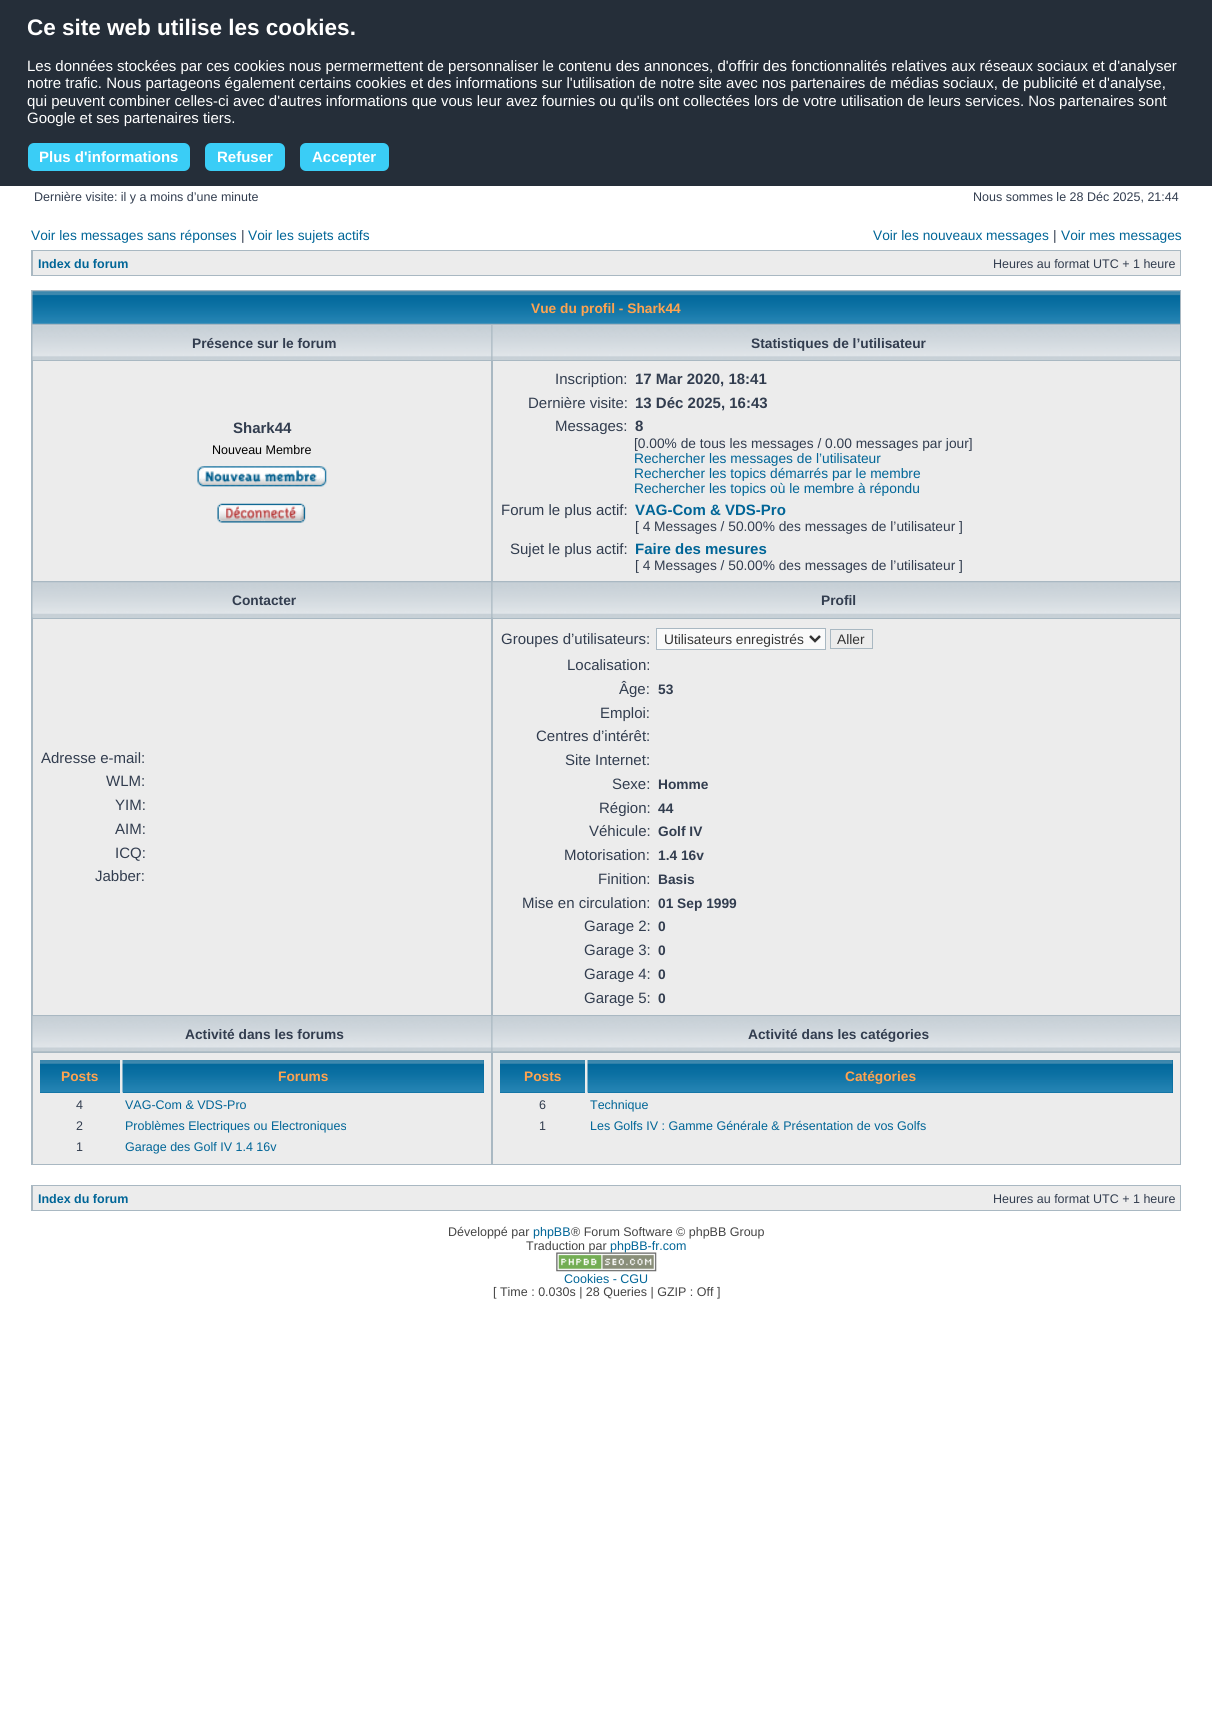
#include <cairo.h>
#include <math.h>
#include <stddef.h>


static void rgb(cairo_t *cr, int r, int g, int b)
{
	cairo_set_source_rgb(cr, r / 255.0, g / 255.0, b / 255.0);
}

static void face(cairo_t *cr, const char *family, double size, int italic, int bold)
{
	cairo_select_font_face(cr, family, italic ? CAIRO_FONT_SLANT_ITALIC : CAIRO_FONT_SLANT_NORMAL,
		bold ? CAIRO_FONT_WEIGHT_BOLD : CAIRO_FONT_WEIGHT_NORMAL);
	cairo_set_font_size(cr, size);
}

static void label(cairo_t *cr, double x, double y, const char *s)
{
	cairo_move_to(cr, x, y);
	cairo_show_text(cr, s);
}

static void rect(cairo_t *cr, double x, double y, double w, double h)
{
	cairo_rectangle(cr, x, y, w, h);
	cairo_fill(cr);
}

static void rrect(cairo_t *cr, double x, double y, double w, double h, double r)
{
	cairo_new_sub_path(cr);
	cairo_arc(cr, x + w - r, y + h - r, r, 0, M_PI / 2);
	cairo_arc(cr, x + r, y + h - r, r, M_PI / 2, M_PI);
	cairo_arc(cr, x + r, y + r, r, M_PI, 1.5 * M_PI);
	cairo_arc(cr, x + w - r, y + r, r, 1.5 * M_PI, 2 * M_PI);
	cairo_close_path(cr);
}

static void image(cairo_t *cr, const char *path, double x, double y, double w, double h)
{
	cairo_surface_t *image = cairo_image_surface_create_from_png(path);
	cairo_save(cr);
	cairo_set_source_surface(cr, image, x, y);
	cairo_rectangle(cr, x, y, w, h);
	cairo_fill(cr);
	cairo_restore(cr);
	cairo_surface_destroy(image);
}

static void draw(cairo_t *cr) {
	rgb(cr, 255, 255, 255);
	cairo_paint(cr);
	rgb(cr, 37, 46, 57);
	rect(cr, 0, 0, 1212, 186);
	face(cr, "Liberation Sans", 22.5, 0, 1);
	rgb(cr, 255, 255, 255);
	label(cr, 27, 35, "Ce site web utilise les cookies.");
	face(cr, "Liberation Sans", 15, 0, 0);
	label(cr, 27, 71, "Les données stockées par ces cookies nous permermettent de personnaliser le contenu des annonces, d'offrir des fonctionnalités relatives aux réseaux sociaux et d'analyser");
	label(cr, 27, 88, "notre trafic. Nous partageons également certains cookies et des informations sur l'utilisation de notre site avec nos partenaires de médias sociaux, de publicité et d'analyse,");
	label(cr, 27, 106, "qui peuvent combiner celles-ci avec d'autres informations que vous leur avez fournies ou qu'ils ont collectées lors de votre utilisation de leurs services. Nos partenaires sont");
	label(cr, 27, 123, "Google et ses partenaires tiers.");
	rgb(cr, 58, 205, 246);
	rrect(cr, 28, 143, 162, 28, 6);
	cairo_fill(cr);
	face(cr, "Liberation Sans", 15, 0, 1);
	rgb(cr, 255, 255, 255);
	label(cr, 39, 162, "Plus d'informations");
	rgb(cr, 58, 205, 246);
	rrect(cr, 205, 143, 80, 28, 6);
	cairo_fill(cr);
	rgb(cr, 255, 255, 255);
	label(cr, 217, 162, "Refuser");
	rgb(cr, 58, 205, 246);
	rrect(cr, 300, 143, 89, 28, 6);
	cairo_fill(cr);
	rgb(cr, 255, 255, 255);
	label(cr, 312, 162, "Accepter");
	face(cr, "Liberation Sans", 12.5, 0, 0);
	rgb(cr, 50, 61, 79);
	label(cr, 34, 201, "Dernière visite: il y a moins d’une minute");
	label(cr, 973, 201, "Nous sommes le 28 Déc 2025, 21:44");
	face(cr, "Liberation Sans", 13.75, 0, 0);
	rgb(cr, 0, 101, 151);
	label(cr, 31, 240, "Voir les messages sans réponses");
	rgb(cr, 50, 61, 79);
	label(cr, 241, 240, "|");
	rgb(cr, 0, 101, 151);
	label(cr, 248, 240, "Voir les sujets actifs");
	label(cr, 873, 240, "Voir les nouveaux messages");
	rgb(cr, 50, 61, 79);
	label(cr, 1053, 240, "|");
	rgb(cr, 0, 101, 151);
	label(cr, 1061, 240, "Voir mes messages");
	rgb(cr, 169, 184, 194);
	rect(cr, 31, 250, 1150, 26);
	rgb(cr, 236, 236, 236);
	rect(cr, 33, 251, 1147, 24);
	face(cr, "Liberation Sans", 12.5, 0, 1);
	rgb(cr, 0, 101, 151);
	label(cr, 38, 268, "Index du forum");
	face(cr, "Liberation Sans", 12.5, 0, 0);
	rgb(cr, 50, 61, 79);
	label(cr, 993, 268, "Heures au format UTC + 1 heure");
	rgb(cr, 169, 184, 194);
	rect(cr, 31, 290, 1150, 875);
	image(cr, "image0.png", 32, 291, 1148, 33);
	face(cr, "Liberation Sans", 13.75, 0, 1);
	rgb(cr, 255, 163, 79);
	label(cr, 531, 313, "Vue du profil - Shark44");
	image(cr, "image1.png", 32, 325, 460, 35);
	rgb(cr, 50, 61, 79);
	label(cr, 192, 348, "Présence sur le forum");
	image(cr, "image2.png", 492, 325, 688, 35);
	label(cr, 751, 348, "Statistiques de l’utilisateur");
	rgb(cr, 236, 236, 236);
	rect(cr, 33, 361, 458, 220);
	face(cr, "Liberation Sans", 15, 0, 1);
	rgb(cr, 50, 61, 79);
	label(cr, 233, 433, "Shark44");
	face(cr, "Liberation Sans", 12.5, 0, 0);
	rgb(cr, 0, 0, 0);
	label(cr, 212, 454, "Nouveau Membre");
	image(cr, "image3.png", 197, 466, 130, 21);
	image(cr, "image4.png", 217, 503, 89, 20);
	rgb(cr, 236, 236, 236);
	rect(cr, 493, 361, 687, 220);
	face(cr, "Liberation Sans", 15, 0, 0);
	rgb(cr, 50, 61, 79);
	label(cr, 555, 384, "Inscription:");
	face(cr, "Liberation Sans", 15, 0, 1);
	label(cr, 635, 384, "17 Mar 2020, 18:41");
	face(cr, "Liberation Sans", 15, 0, 0);
	label(cr, 528, 408, "Dernière visite:");
	face(cr, "Liberation Sans", 15, 0, 1);
	label(cr, 635, 408, "13 Déc 2025, 16:43");
	face(cr, "Liberation Sans", 15, 0, 0);
	label(cr, 555, 431, "Messages:");
	face(cr, "Liberation Sans", 15, 0, 1);
	label(cr, 635, 431, "8");
	face(cr, "Liberation Sans", 13.75, 0, 0);
	label(cr, 634, 448, "[0.00% de tous les messages / 0.00 messages par jour]");
	rgb(cr, 0, 101, 151);
	label(cr, 634, 463, "Rechercher les messages de l’utilisateur");
	label(cr, 634, 478, "Rechercher les topics démarrés par le membre");
	label(cr, 634, 493, "Rechercher les topics où le membre à répondu");
	face(cr, "Liberation Sans", 15, 0, 0);
	rgb(cr, 50, 61, 79);
	label(cr, 501, 515, "Forum le plus actif:");
	face(cr, "Liberation Sans", 15, 0, 1);
	rgb(cr, 0, 101, 151);
	label(cr, 635, 515, "VAG-Com & VDS-Pro");
	face(cr, "Liberation Sans", 13.75, 0, 0);
	rgb(cr, 50, 61, 79);
	label(cr, 635, 531, "[ 4 Messages / 50.00% des messages de l’utilisateur ]");
	face(cr, "Liberation Sans", 15, 0, 0);
	label(cr, 510, 554, "Sujet le plus actif:");
	face(cr, "Liberation Sans", 15, 0, 1);
	rgb(cr, 0, 101, 151);
	label(cr, 635, 554, "Faire des mesures");
	face(cr, "Liberation Sans", 13.75, 0, 0);
	rgb(cr, 50, 61, 79);
	label(cr, 635, 570, "[ 4 Messages / 50.00% des messages de l’utilisateur ]");
	rgb(cr, 199, 208, 215);
	rect(cr, 33, 617, 458, 1);
	image(cr, "image5.png", 32, 582, 460, 36);
	face(cr, "Liberation Sans", 13.75, 0, 1);
	rgb(cr, 50, 61, 79);
	label(cr, 232, 605, "Contacter");
	rgb(cr, 199, 208, 215);
	rect(cr, 493, 617, 687, 1);
	image(cr, "image6.png", 492, 582, 688, 36);
	rgb(cr, 50, 61, 79);
	label(cr, 821, 605, "Profil");
	rgb(cr, 236, 236, 236);
	rect(cr, 33, 619, 458, 396);
	face(cr, "Liberation Sans", 15, 0, 0);
	rgb(cr, 50, 61, 79);
	label(cr, 41, 763, "Adresse e-mail:");
	label(cr, 106, 786, "WLM:");
	label(cr, 115, 810, "YIM:");
	label(cr, 115, 834, "AIM:");
	label(cr, 115, 858, "ICQ:");
	label(cr, 95, 881, "Jabber:");
	rgb(cr, 236, 236, 236);
	rect(cr, 493, 619, 687, 396);
	rgb(cr, 50, 61, 79);
	label(cr, 501, 644, "Groupes d’utilisateurs:");
	rgb(cr, 250, 250, 250);
	cairo_rectangle(cr, 656.5, 628.5, 169, 21);
	cairo_fill_preserve(cr);
	rgb(cr, 169, 184, 194);
	cairo_set_line_width(cr, 1);
	cairo_stroke(cr);
	cairo_new_path(cr);
	cairo_move_to(cr, 810, 636);
	cairo_line_to(cr, 815, 641);
	cairo_line_to(cr, 820, 636);
	rgb(cr, 51, 51, 51);
	cairo_set_line_width(cr, 2.5);
	cairo_stroke(cr);
	face(cr, "Liberation Sans", 13.75, 0, 0);
	label(cr, 664, 644, "Utilisateurs enregistrés");
	cairo_rectangle(cr, 830.5, 629.5, 42, 19);
	rgb(cr, 169, 184, 194);
	cairo_set_line_width(cr, 1);
	cairo_stroke(cr);
	rgb(cr, 51, 51, 51);
	label(cr, 837, 644, "Aller");
	face(cr, "Liberation Sans", 15, 0, 0);
	rgb(cr, 50, 61, 79);
	label(cr, 567, 670, "Localisation:");
	label(cr, 619, 694, "Âge:");
	face(cr, "Liberation Sans", 13.75, 0, 1);
	label(cr, 658, 694, "53");
	face(cr, "Liberation Sans", 15, 0, 0);
	label(cr, 600, 718, "Emploi:");
	label(cr, 536, 741, "Centres d’intérêt:");
	label(cr, 565, 765, "Site Internet:");
	label(cr, 612, 789, "Sexe:");
	face(cr, "Liberation Sans", 13.75, 0, 1);
	label(cr, 658, 789, "Homme");
	face(cr, "Liberation Sans", 15, 0, 0);
	label(cr, 599, 813, "Région:");
	face(cr, "Liberation Sans", 13.75, 0, 1);
	label(cr, 658, 813, "44");
	face(cr, "Liberation Sans", 15, 0, 0);
	label(cr, 589, 836, "Véhicule:");
	face(cr, "Liberation Sans", 13.75, 0, 1);
	label(cr, 658, 836, "Golf IV");
	face(cr, "Liberation Sans", 15, 0, 0);
	label(cr, 564, 860, "Motorisation:");
	face(cr, "Liberation Sans", 13.75, 0, 1);
	label(cr, 658, 860, "1.4 16v");
	face(cr, "Liberation Sans", 15, 0, 0);
	label(cr, 598, 884, "Finition:");
	face(cr, "Liberation Sans", 13.75, 0, 1);
	label(cr, 658, 884, "Basis");
	face(cr, "Liberation Sans", 15, 0, 0);
	label(cr, 522, 908, "Mise en circulation:");
	face(cr, "Liberation Sans", 13.75, 0, 1);
	label(cr, 658, 908, "01 Sep 1999");
	face(cr, "Liberation Sans", 15, 0, 0);
	label(cr, 584, 931, "Garage 2:");
	face(cr, "Liberation Sans", 13.75, 0, 1);
	label(cr, 658, 931, "0");
	face(cr, "Liberation Sans", 15, 0, 0);
	label(cr, 584, 955, "Garage 3:");
	face(cr, "Liberation Sans", 13.75, 0, 1);
	label(cr, 658, 955, "0");
	face(cr, "Liberation Sans", 15, 0, 0);
	label(cr, 584, 979, "Garage 4:");
	face(cr, "Liberation Sans", 13.75, 0, 1);
	label(cr, 658, 979, "0");
	face(cr, "Liberation Sans", 15, 0, 0);
	label(cr, 584, 1003, "Garage 5:");
	face(cr, "Liberation Sans", 13.75, 0, 1);
	label(cr, 658, 1003, "0");
	image(cr, "image7.png", 32, 1016, 460, 36);
	label(cr, 185, 1039, "Activité dans les forums");
	image(cr, "image8.png", 492, 1016, 688, 36);
	label(cr, 748, 1039, "Activité dans les catégories");
	rgb(cr, 236, 236, 236);
	rect(cr, 33, 1053, 458, 111);
	rgb(cr, 0, 102, 153);
	rect(cr, 40, 1092, 80, 1);
	image(cr, "image9.png", 40, 1060, 80, 33);
	rgb(cr, 255, 163, 79);
	label(cr, 61, 1081, "Posts");
	rgb(cr, 0, 102, 153);
	rect(cr, 123, 1060, 361, 33);
	image(cr, "image10.png", 122, 1060, 362, 33);
	rgb(cr, 255, 163, 79);
	label(cr, 278, 1081, "Forums");
	face(cr, "Liberation Sans", 12.5, 0, 0);
	rgb(cr, 50, 61, 79);
	label(cr, 76, 1109, "4");
	rgb(cr, 0, 101, 151);
	label(cr, 125, 1109, "VAG-Com & VDS-Pro");
	rgb(cr, 50, 61, 79);
	label(cr, 76, 1130, "2");
	rgb(cr, 0, 101, 151);
	label(cr, 125, 1130, "Problèmes Electriques ou Electroniques");
	rgb(cr, 50, 61, 79);
	label(cr, 76, 1151, "1");
	rgb(cr, 0, 101, 151);
	label(cr, 125, 1151, "Garage des Golf IV 1.4 16v");
	rgb(cr, 236, 236, 236);
	rect(cr, 493, 1053, 687, 111);
	rgb(cr, 0, 102, 153);
	rect(cr, 500, 1092, 85, 1);
	image(cr, "image11.png", 500, 1060, 85, 33);
	face(cr, "Liberation Sans", 13.75, 0, 1);
	rgb(cr, 255, 163, 79);
	label(cr, 524, 1081, "Posts");
	rgb(cr, 0, 102, 153);
	rect(cr, 588, 1060, 585, 33);
	image(cr, "image12.png", 587, 1060, 586, 33);
	rgb(cr, 255, 163, 79);
	label(cr, 845, 1081, "Catégories");
	face(cr, "Liberation Sans", 12.5, 0, 0);
	rgb(cr, 50, 61, 79);
	label(cr, 539, 1109, "6");
	rgb(cr, 0, 101, 151);
	label(cr, 590, 1109, "Technique");
	rgb(cr, 50, 61, 79);
	label(cr, 539, 1130, "1");
	rgb(cr, 0, 101, 151);
	label(cr, 590, 1130, "Les Golfs IV : Gamme Générale & Présentation de vos Golfs");
	rgb(cr, 169, 184, 194);
	rect(cr, 31, 1185, 1150, 26);
	rgb(cr, 236, 236, 236);
	rect(cr, 33, 1186, 1147, 24);
	face(cr, "Liberation Sans", 12.5, 0, 1);
	rgb(cr, 0, 101, 151);
	label(cr, 38, 1203, "Index du forum");
	face(cr, "Liberation Sans", 12.5, 0, 0);
	rgb(cr, 50, 61, 79);
	label(cr, 993, 1203, "Heures au format UTC + 1 heure");
	rgb(cr, 68, 68, 68);
	label(cr, 448, 1236, "Développé par");
	rgb(cr, 0, 101, 151);
	label(cr, 533, 1236, "phpBB");
	rgb(cr, 68, 68, 68);
	label(cr, 571, 1236, "® Forum Software © phpBB Group");
	label(cr, 526, 1250, "Traduction par");
	rgb(cr, 0, 101, 151);
	label(cr, 610, 1250, "phpBB-fr.com");
	image(cr, "image13.png", 556, 1252, 101, 20);
	label(cr, 564, 1283, "Cookies - CGU");
	rgb(cr, 68, 68, 68);
	label(cr, 493, 1296, "[ Time : 0.030s | 28 Queries | GZIP : Off ]");
}

int main(void) {
	cairo_surface_t *surface = cairo_image_surface_create(CAIRO_FORMAT_RGB24, 1212, 1717);
	cairo_t *cr = cairo_create(surface);
	cairo_font_options_t *options = cairo_font_options_create();
	cairo_font_options_set_hint_metrics(options, CAIRO_HINT_METRICS_OFF);
	cairo_font_options_set_hint_style(options, CAIRO_HINT_STYLE_NONE);
	cairo_set_font_options(cr, options);
	cairo_set_miter_limit(cr, 4);
	draw(cr);
	cairo_surface_write_to_png(surface, "render.png");
	cairo_font_options_destroy(options);
	cairo_destroy(cr);
	cairo_surface_destroy(surface);
	return 0;
}
